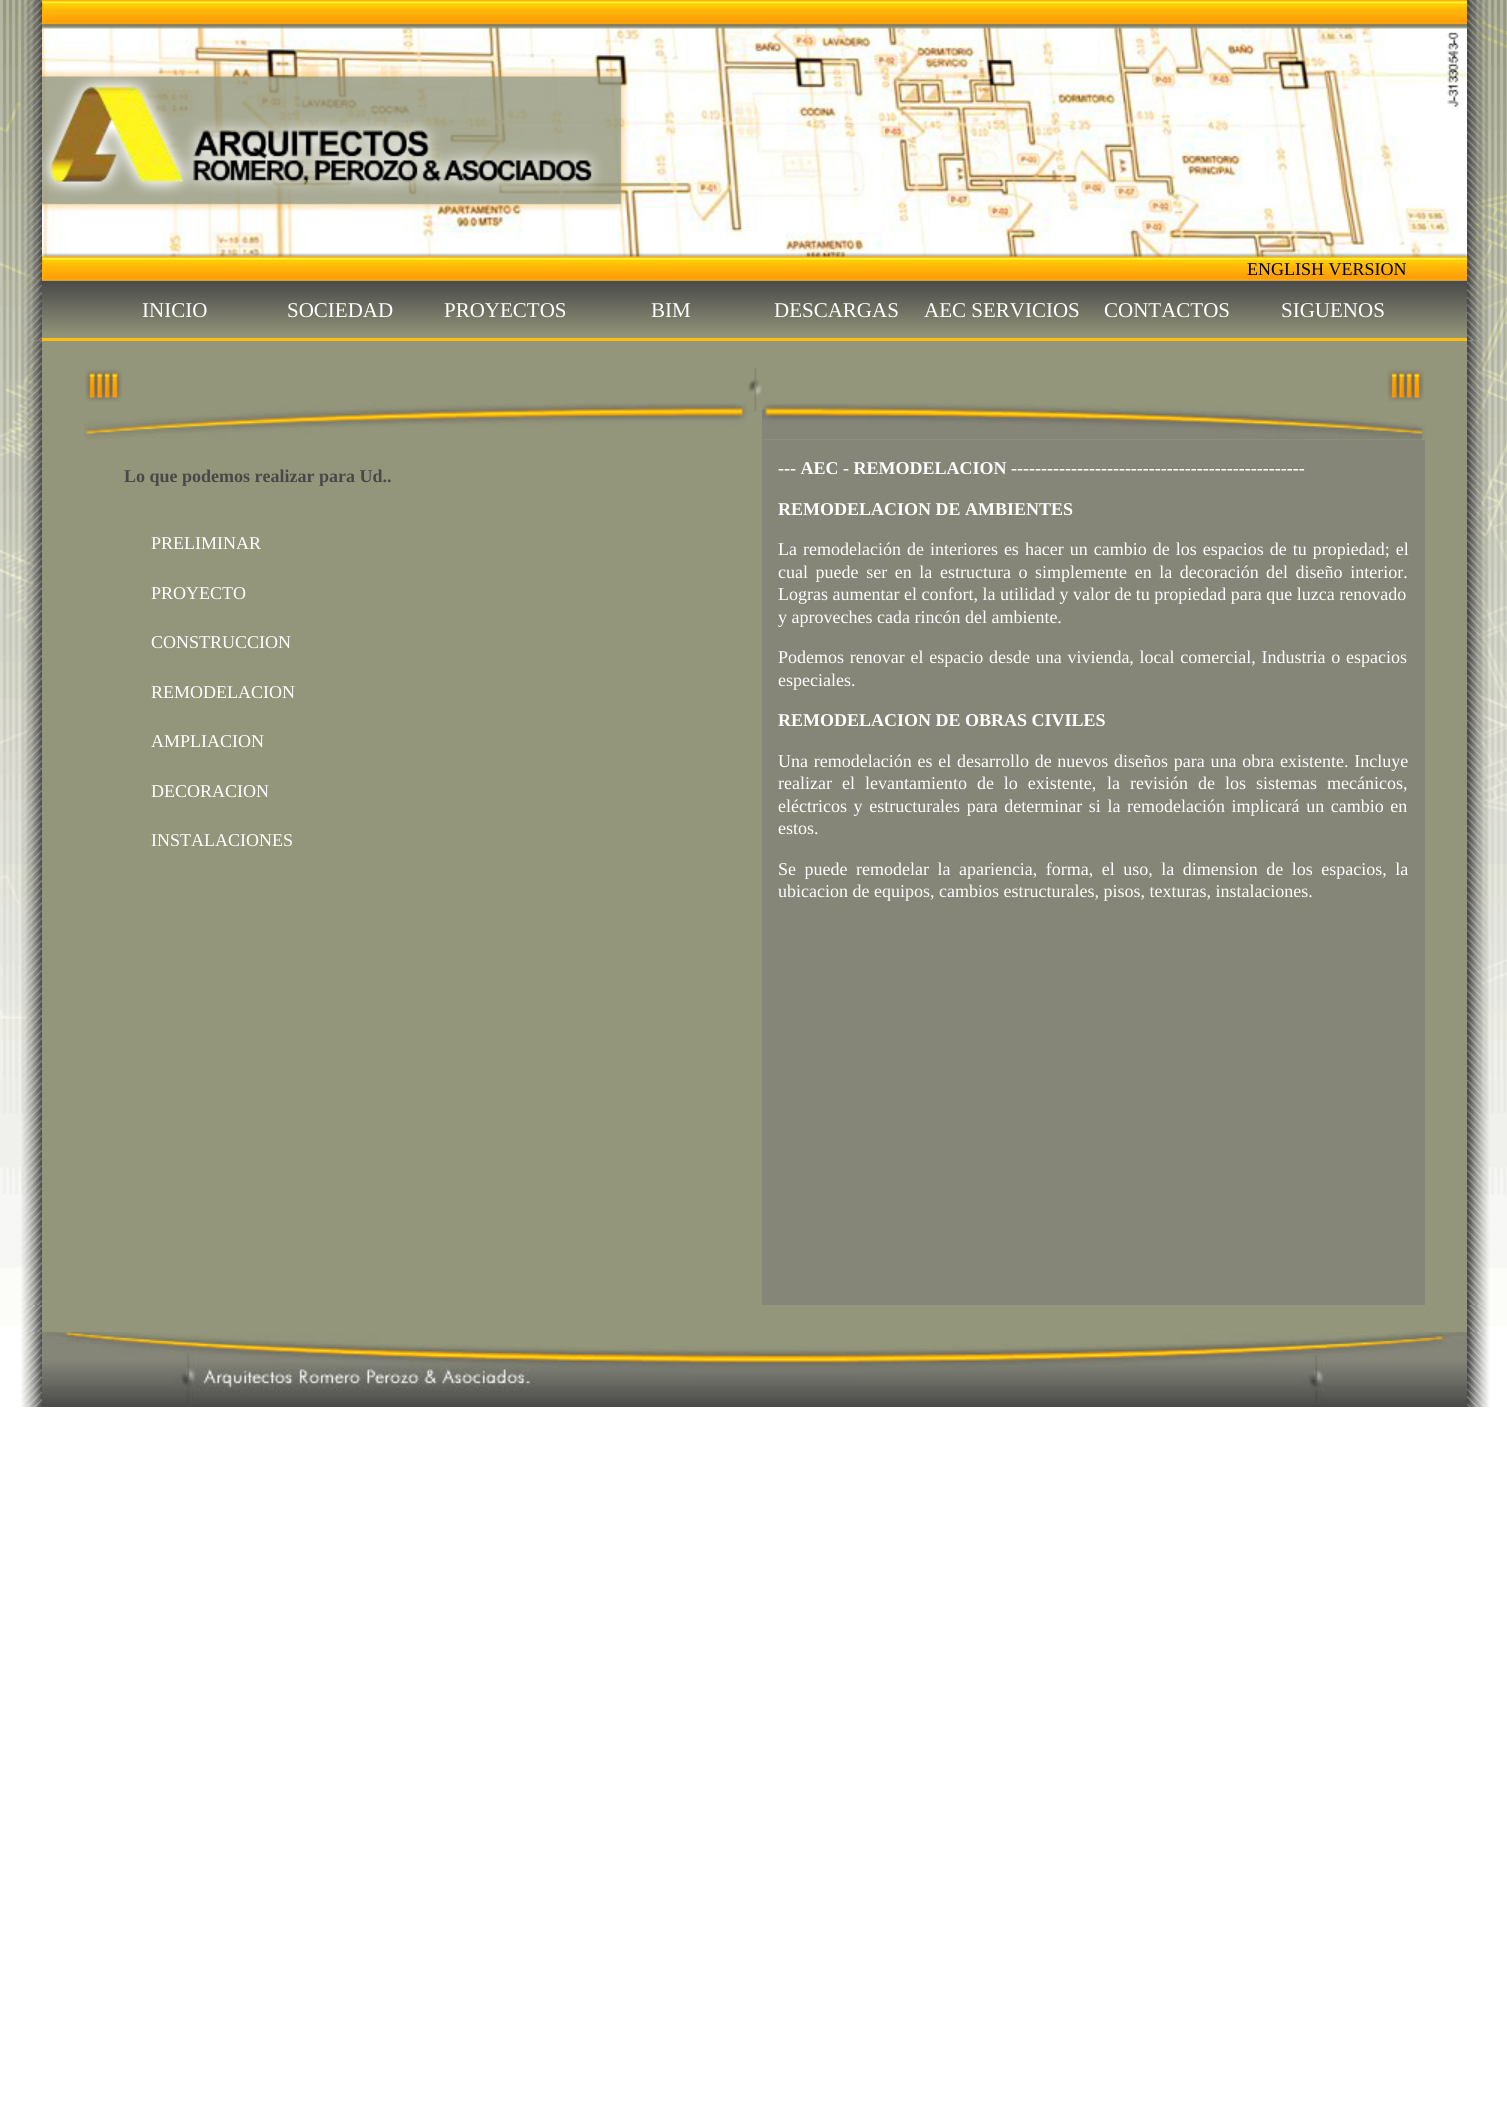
#include <cairo.h>
#include <math.h>
#include <stddef.h>


static void rgb(cairo_t *cr, int r, int g, int b)
{
	cairo_set_source_rgb(cr, r / 255.0, g / 255.0, b / 255.0);
}

static void face(cairo_t *cr, const char *family, double size, int italic, int bold)
{
	cairo_select_font_face(cr, family, italic ? CAIRO_FONT_SLANT_ITALIC : CAIRO_FONT_SLANT_NORMAL,
		bold ? CAIRO_FONT_WEIGHT_BOLD : CAIRO_FONT_WEIGHT_NORMAL);
	cairo_set_font_size(cr, size);
}

static void label(cairo_t *cr, double x, double y, const char *s)
{
	cairo_move_to(cr, x, y);
	cairo_show_text(cr, s);
}

static void tracked(cairo_t *cr, double x, double y, const char *s, double letter, double word)
{
	cairo_move_to(cr, x, y);
	while (*s) {
		char ch[5] = {0};
		int n = 0;
		do ch[n++] = *s++; while ((*s & 0xC0) == 0x80);
		cairo_show_text(cr, ch);
		cairo_rel_move_to(cr, letter + word * (*ch == ' '), 0);
	}
}

static void rect(cairo_t *cr, double x, double y, double w, double h)
{
	cairo_rectangle(cr, x, y, w, h);
	cairo_fill(cr);
}

static void image(cairo_t *cr, const char *path, double x, double y, double w, double h)
{
	cairo_surface_t *image = cairo_image_surface_create_from_png(path);
	cairo_save(cr);
	cairo_set_source_surface(cr, image, x, y);
	cairo_rectangle(cr, x, y, w, h);
	cairo_fill(cr);
	cairo_restore(cr);
	cairo_surface_destroy(image);
}

static void draw(cairo_t *cr) {
	cairo_pattern_t *gradient;
	rgb(cr, 255, 255, 255);
	cairo_paint(cr);
	image(cr, "image0.png", 0, 0, 1507, 1326);
	image(cr, "image1.png", 22, 0, 20, 341);
	rgb(cr, 148, 150, 123);
	rect(cr, 42, 280, 1425, 1);
	image(cr, "image2.png", 42, 0, 1425, 281);
	face(cr, "Liberation Serif", 18, 0, 0);
	rgb(cr, 0, 0, 0);
	label(cr, 1247, 275, "ENGLISH VERSION");
	gradient = cairo_pattern_create_linear(755, 280, 755, 338);
	cairo_pattern_add_color_stop_rgba(gradient, 0, 0.282, 0.282, 0.282, 1);
	cairo_pattern_add_color_stop_rgba(gradient, 1, 0.58, 0.588, 0.482, 1);
	cairo_set_source(cr, gradient);
	cairo_pattern_destroy(gradient);
	rect(cr, 42, 281, 1425, 57);
	rgb(cr, 255, 191, 8);
	rect(cr, 42, 338, 1425, 3);
	face(cr, "Liberation Serif", 21, 0, 0);
	rgb(cr, 255, 255, 255);
	label(cr, 142, 317, "INICIO");
	label(cr, 287, 317, "SOCIEDAD");
	label(cr, 444, 317, "PROYECTOS");
	label(cr, 651, 317, "BIM");
	label(cr, 774, 317, "DESCARGAS");
	label(cr, 924, 317, "AEC SERVICIOS");
	label(cr, 1104, 317, "CONTACTOS");
	label(cr, 1281, 317, "SIGUENOS");
	image(cr, "image3.png", 1467, 0, 22, 341);
	image(cr, "image4.png", 21, 340, 21, 965);
	rgb(cr, 148, 150, 123);
	rect(cr, 42, 341, 1425, 991);
	image(cr, "image5.png", 748, 367, 14, 45);
	image(cr, "image6.png", 85, 369, 37, 33);
	image(cr, "image7.png", 84, 403, 663, 37);
	face(cr, "Liberation Serif", 18, 0, 1);
	rgb(cr, 72, 72, 72);
	label(cr, 124, 482, "Lo que podemos realizar para Ud..");
	face(cr, "Liberation Serif", 18, 0, 0);
	rgb(cr, 255, 255, 255);
	label(cr, 151, 549, "PRELIMINAR");
	label(cr, 151, 599, "PROYECTO");
	label(cr, 151, 648, "CONSTRUCCION");
	label(cr, 151, 698, "REMODELACION");
	label(cr, 151, 747, "AMPLIACION");
	label(cr, 151, 797, "DECORACION");
	label(cr, 151, 846, "INSTALACIONES");
	image(cr, "image6.png", 1387, 369, 37, 33);
	image(cr, "image8.png", 762, 403, 663, 37);
	rgb(cr, 133, 134, 120);
	rect(cr, 762, 440, 663, 865);
	face(cr, "Liberation Serif", 18, 0, 1);
	rgb(cr, 255, 255, 255);
	label(cr, 778, 474, "--- AEC - REMODELACION -------------------------------------------------");
	label(cr, 778, 515, "REMODELACION DE AMBIENTES");
	face(cr, "Liberation Serif", 18, 0, 0);
	tracked(cr, 778, 555, "La remodelación de interiores es hacer un cambio de los espacios de tu propiedad; el", 0, 1.5);
	tracked(cr, 778, 578, "cual puede ser en la estructura o simplemente en la decoración", 0, 3.1);
	tracked(cr, 1266, 578, "del diseño interior.", 0, 3.1);
	label(cr, 778, 600, "Logras aumentar el confort, la utilidad y valor de tu propiedad para que luzca renovado");
	label(cr, 778, 623, "y aproveches cada rincón del ambiente.");
	tracked(cr, 778, 663, "Podemos renovar el espacio desde una vivienda, local comercial, Industria o espacios", 0, 1.25);
	label(cr, 778, 686, "especiales.");
	face(cr, "Liberation Serif", 18, 0, 1);
	label(cr, 778, 726, "REMODELACION DE OBRAS CIVILES");
	face(cr, "Liberation Serif", 18, 0, 0);
	tracked(cr, 778, 767, "Una remodelación es el desarrollo de nuevos diseños para una obra existente. Incluye", 0, 1.25);
	tracked(cr, 778, 789, "realizar el levantamiento de lo existente,", 0, 5.5);
	tracked(cr, 1107, 789, "la revisión de los sistemas mecánicos,", 0, 5.5);
	tracked(cr, 778, 812, "eléctricos y estructurales para determinar si la remodelación implicará un cambio en", 0, 2.1);
	label(cr, 778, 834, "estos.");
	tracked(cr, 778, 875, "Se puede remodelar la apariencia, forma, el uso, la dimension de los espacios, la", 0, 4);
	label(cr, 778, 897, "ubicacion de equipos, cambios estructurales, pisos, texturas, instalaciones.");
	image(cr, "image9.png", 1467, 340, 23, 965);
	image(cr, "image10.png", 21, 1305, 21, 27);
	image(cr, "image11.png", 1467, 1305, 23, 27);
	image(cr, "image12.png", 21, 1332, 21, 75);
	image(cr, "image13.png", 42, 1332, 1425, 75);
	image(cr, "image14.png", 1467, 1332, 23, 75);
}

int main(void) {
	cairo_surface_t *surface = cairo_image_surface_create(CAIRO_FORMAT_RGB24, 1507, 2106);
	cairo_t *cr = cairo_create(surface);
	cairo_font_options_t *options = cairo_font_options_create();
	cairo_font_options_set_hint_metrics(options, CAIRO_HINT_METRICS_OFF);
	cairo_font_options_set_hint_style(options, CAIRO_HINT_STYLE_NONE);
	cairo_set_font_options(cr, options);
	cairo_set_miter_limit(cr, 4);
	draw(cr);
	cairo_surface_write_to_png(surface, "render.png");
	cairo_font_options_destroy(options);
	cairo_destroy(cr);
	cairo_surface_destroy(surface);
	return 0;
}
